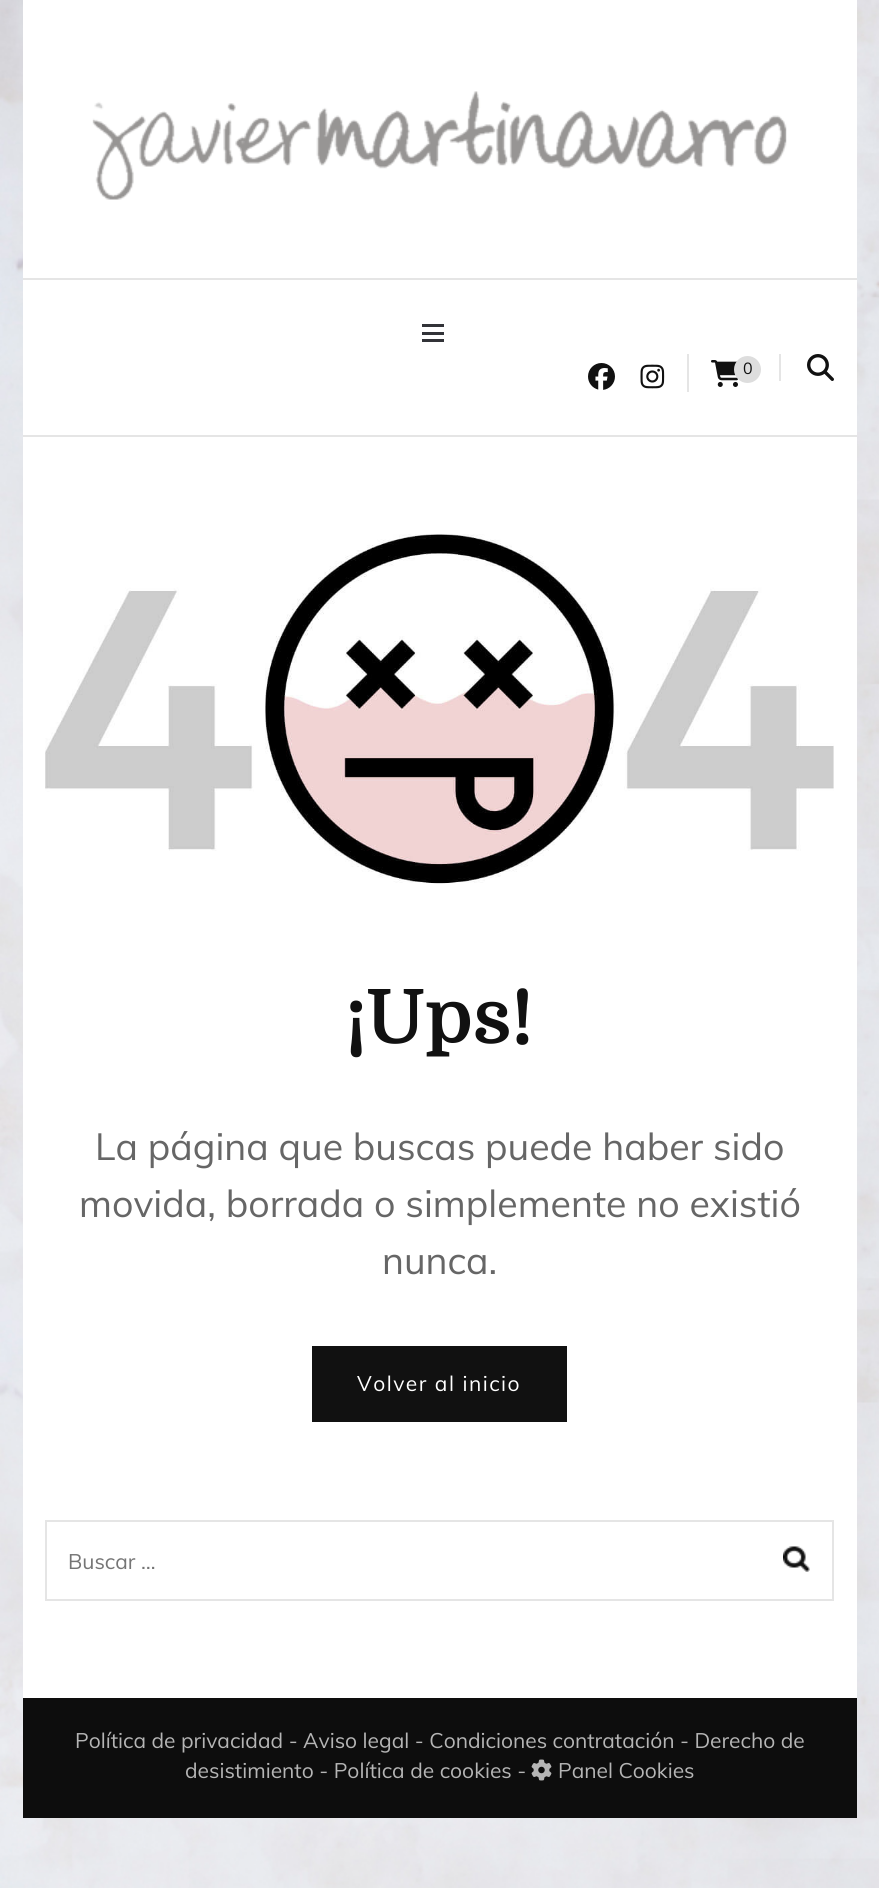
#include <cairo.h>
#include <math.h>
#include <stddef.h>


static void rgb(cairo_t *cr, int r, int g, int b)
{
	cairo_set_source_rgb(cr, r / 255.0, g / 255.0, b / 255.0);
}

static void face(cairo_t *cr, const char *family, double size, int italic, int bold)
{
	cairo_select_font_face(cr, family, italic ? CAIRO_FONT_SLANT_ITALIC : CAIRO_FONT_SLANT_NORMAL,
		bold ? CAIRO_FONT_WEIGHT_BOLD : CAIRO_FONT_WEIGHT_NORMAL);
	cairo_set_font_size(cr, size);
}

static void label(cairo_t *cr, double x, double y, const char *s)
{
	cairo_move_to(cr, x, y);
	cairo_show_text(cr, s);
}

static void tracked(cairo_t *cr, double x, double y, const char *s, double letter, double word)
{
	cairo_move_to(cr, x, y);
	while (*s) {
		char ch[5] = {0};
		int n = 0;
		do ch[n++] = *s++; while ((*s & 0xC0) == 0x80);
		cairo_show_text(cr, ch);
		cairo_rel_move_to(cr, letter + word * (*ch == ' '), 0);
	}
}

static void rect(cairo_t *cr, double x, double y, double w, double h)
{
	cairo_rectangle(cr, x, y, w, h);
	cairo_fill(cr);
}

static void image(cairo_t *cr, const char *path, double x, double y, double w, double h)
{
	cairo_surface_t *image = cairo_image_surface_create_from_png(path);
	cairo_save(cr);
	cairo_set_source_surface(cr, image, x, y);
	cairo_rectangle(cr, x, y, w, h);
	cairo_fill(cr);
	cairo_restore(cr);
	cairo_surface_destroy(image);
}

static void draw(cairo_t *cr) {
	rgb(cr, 255, 255, 255);
	cairo_paint(cr);
	image(cr, "image0.png", 0, 0, 879, 1888);
	rgb(cr, 255, 255, 255);
	rect(cr, 23, 0, 834, 1698);
	image(cr, "image1.png", 92, 91, 695, 109);
	rgb(cr, 229, 229, 229);
	rect(cr, 23, 278, 834, 2);
	rect(cr, 23, 435, 834, 2);
	rgb(cr, 50, 51, 56);
	rect(cr, 422, 332, 22, 3);
	rect(cr, 422, 324, 22, 3);
	rect(cr, 422, 339, 22, 3);
	image(cr, "image2.png", 588, 363, 27, 27);
	image(cr, "image3.png", 640, 364, 25, 25);
	rgb(cr, 229, 229, 229);
	rect(cr, 687, 354, 2, 38);
	image(cr, "image4.png", 711, 360, 27, 27);
	rgb(cr, 221, 221, 221);
	cairo_arc(cr, 747.5, 369.5, 13.5, 0, 2 * M_PI);
	cairo_fill(cr);
	face(cr, "Muli", 16, 0, 0);
	rgb(cr, 17, 17, 17);
	label(cr, 743, 374, "0");
	rgb(cr, 229, 229, 229);
	rect(cr, 779, 354, 2, 27);
	image(cr, "image5.png", 807, 354, 27, 27);
	image(cr, "image6.png", 45, 534, 789, 350);
	face(cr, "Domine", 75, 0, 1);
	rgb(cr, 17, 17, 17);
	label(cr, 346, 1043, "¡Ups!");
	face(cr, "Muli", 37.5, 0, 0);
	rgb(cr, 102, 102, 102);
	label(cr, 95, 1160, "La página que buscas puede haber sido");
	label(cr, 79, 1217, "movida, borrada o simplemente no existió");
	label(cr, 382, 1274, "nunca.");
	rgb(cr, 17, 17, 17);
	rect(cr, 312, 1346, 255, 76);
	face(cr, "Muli", 21, 0, 0);
	rgb(cr, 255, 255, 255);
	tracked(cr, 357, 1391, "Volver al inicio", 1.5, 0);
	cairo_rectangle(cr, 46, 1521, 787, 79);
	rgb(cr, 229, 229, 229);
	cairo_stroke(cr);
	rgb(cr, 117, 117, 117);
	label(cr, 68, 1569, "Buscar …");
	image(cr, "image7.png", 783, 1546, 27, 26);
	rgb(cr, 13, 13, 13);
	rect(cr, 23, 1698, 834, 120);
	rgb(cr, 181, 181, 181);
	label(cr, 75, 1748, "Política de privacidad - Aviso legal - Condiciones contratación - Derecho de");
	label(cr, 185, 1778, "desistimiento - Política de cookies -");
	image(cr, "image8.png", 531, 1759, 21, 22);
	label(cr, 558, 1778, "Panel Cookies");
}

int main(void) {
	cairo_surface_t *surface = cairo_image_surface_create(CAIRO_FORMAT_RGB24, 879, 1888);
	cairo_t *cr = cairo_create(surface);
	cairo_font_options_t *options = cairo_font_options_create();
	cairo_font_options_set_hint_metrics(options, CAIRO_HINT_METRICS_OFF);
	cairo_font_options_set_hint_style(options, CAIRO_HINT_STYLE_NONE);
	cairo_set_font_options(cr, options);
	cairo_set_miter_limit(cr, 4);
	draw(cr);
	cairo_surface_write_to_png(surface, "render.png");
	cairo_font_options_destroy(options);
	cairo_destroy(cr);
	cairo_surface_destroy(surface);
	return 0;
}
